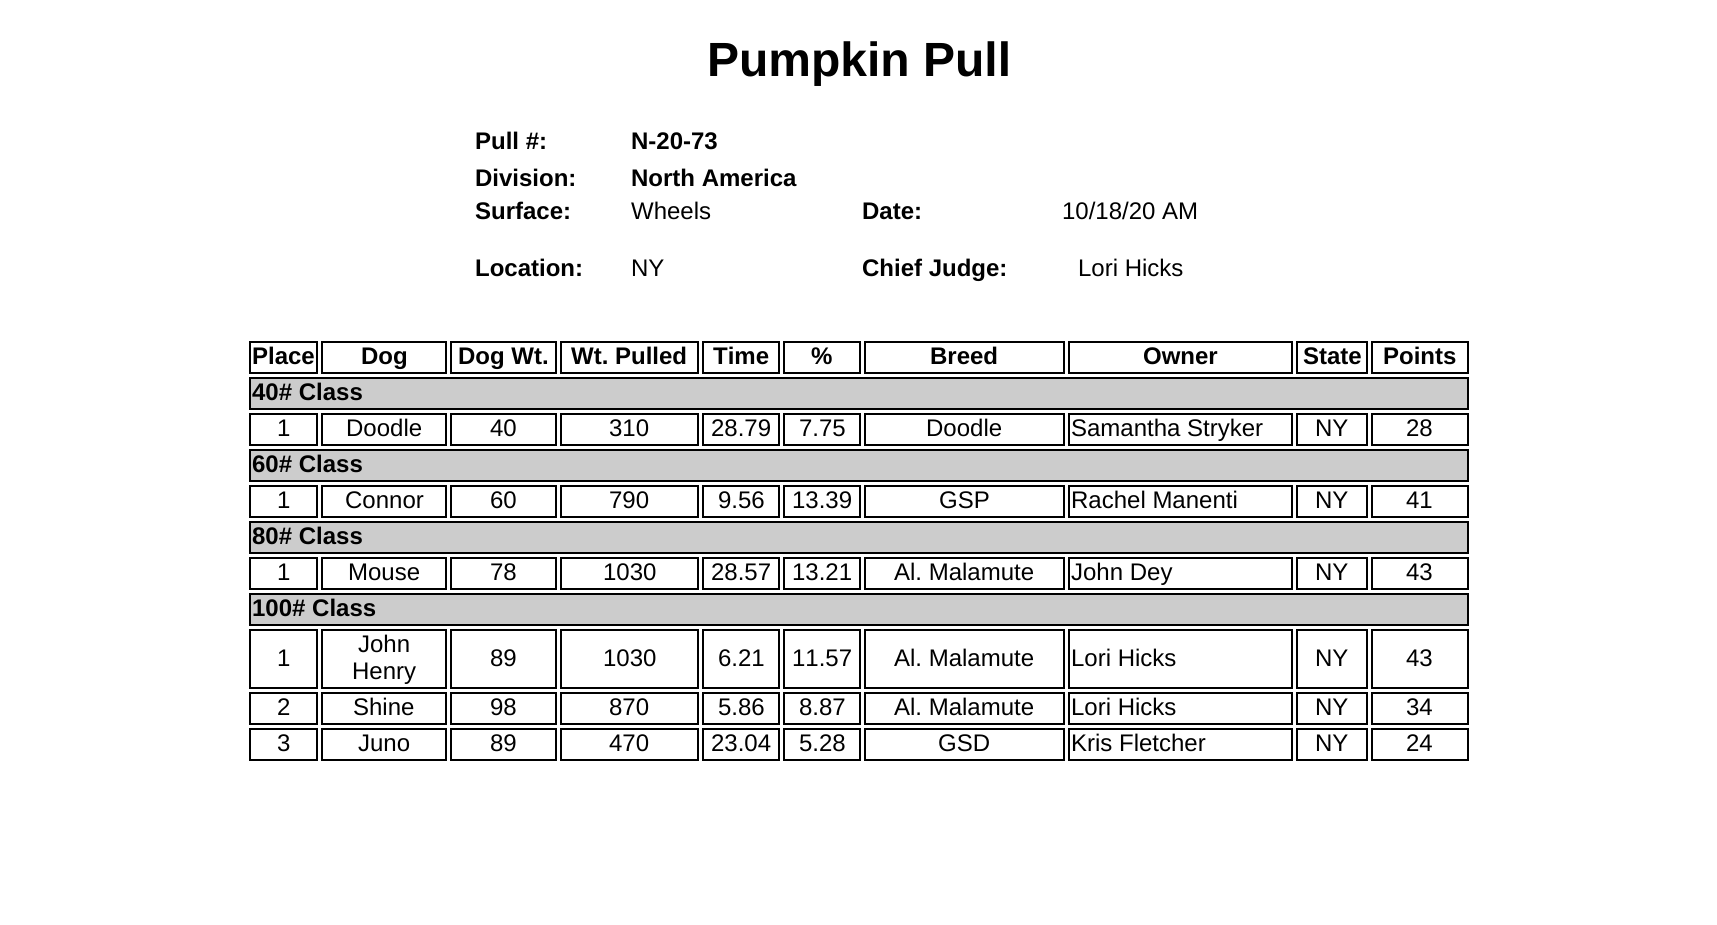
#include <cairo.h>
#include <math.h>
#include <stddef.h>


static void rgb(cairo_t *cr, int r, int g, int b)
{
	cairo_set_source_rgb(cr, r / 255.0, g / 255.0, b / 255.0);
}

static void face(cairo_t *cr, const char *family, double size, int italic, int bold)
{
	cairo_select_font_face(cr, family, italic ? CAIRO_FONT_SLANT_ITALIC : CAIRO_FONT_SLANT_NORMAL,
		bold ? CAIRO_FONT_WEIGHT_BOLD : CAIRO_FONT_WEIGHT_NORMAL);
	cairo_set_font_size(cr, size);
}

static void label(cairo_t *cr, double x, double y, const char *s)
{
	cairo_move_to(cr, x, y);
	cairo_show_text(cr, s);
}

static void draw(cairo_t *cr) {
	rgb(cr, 255, 255, 255);
	cairo_paint(cr);
	face(cr, "Liberation Sans", 48, 0, 1);
	rgb(cr, 0, 0, 0);
	label(cr, 707, 76, "Pumpkin Pull");
	face(cr, "Liberation Sans", 24, 0, 1);
	label(cr, 475, 149, "Pull #:");
	label(cr, 631, 149, "N-20-73");
	label(cr, 475, 186, "Division:");
	label(cr, 631, 186, "North America");
	label(cr, 475, 219, "Surface:");
	face(cr, "Liberation Sans", 24, 0, 0);
	label(cr, 631, 219, "Wheels");
	face(cr, "Liberation Sans", 24, 0, 1);
	label(cr, 862, 219, "Date:");
	face(cr, "Liberation Sans", 24, 0, 0);
	label(cr, 1062, 219, "10/18/20 AM");
	face(cr, "Liberation Sans", 24, 0, 1);
	label(cr, 475, 276, "Location:");
	face(cr, "Liberation Sans", 24, 0, 0);
	label(cr, 631, 276, "NY");
	face(cr, "Liberation Sans", 24, 0, 1);
	label(cr, 862, 276, "Chief Judge:");
	face(cr, "Liberation Sans", 24, 0, 0);
	label(cr, 1078, 276, "Lori Hicks");
	cairo_rectangle(cr, 250, 342, 67, 31);
	cairo_stroke(cr);
	face(cr, "Liberation Sans", 24, 0, 1);
	label(cr, 252, 364, "Place");
	cairo_rectangle(cr, 322, 342, 124, 31);
	cairo_stroke(cr);
	label(cr, 361, 364, "Dog");
	cairo_rectangle(cr, 451, 342, 105, 31);
	cairo_stroke(cr);
	label(cr, 458, 364, "Dog Wt.");
	cairo_rectangle(cr, 561, 342, 137, 31);
	cairo_stroke(cr);
	label(cr, 571, 364, "Wt. Pulled");
	cairo_rectangle(cr, 703, 342, 76, 31);
	cairo_stroke(cr);
	label(cr, 713, 364, "Time");
	cairo_rectangle(cr, 784, 342, 76, 31);
	cairo_stroke(cr);
	label(cr, 811, 364, "%");
	cairo_rectangle(cr, 865, 342, 199, 31);
	cairo_stroke(cr);
	label(cr, 930, 364, "Breed");
	cairo_rectangle(cr, 1069, 342, 223, 31);
	cairo_stroke(cr);
	label(cr, 1143, 364, "Owner");
	cairo_rectangle(cr, 1297, 342, 70, 31);
	cairo_stroke(cr);
	label(cr, 1303, 364, "State");
	cairo_rectangle(cr, 1372, 342, 96, 31);
	cairo_stroke(cr);
	label(cr, 1383, 364, "Points");
	rgb(cr, 204, 204, 204);
	cairo_rectangle(cr, 250, 378, 1218, 31);
	cairo_fill_preserve(cr);
	rgb(cr, 0, 0, 0);
	cairo_stroke(cr);
	label(cr, 252, 400, "40# Class");
	cairo_rectangle(cr, 250, 414, 67, 31);
	cairo_stroke(cr);
	face(cr, "Liberation Sans", 24, 0, 0);
	label(cr, 277, 436, "1");
	cairo_rectangle(cr, 322, 414, 124, 31);
	cairo_stroke(cr);
	label(cr, 346, 436, "Doodle");
	cairo_rectangle(cr, 451, 414, 105, 31);
	cairo_stroke(cr);
	label(cr, 490, 436, "40");
	cairo_rectangle(cr, 561, 414, 137, 31);
	cairo_stroke(cr);
	label(cr, 609, 436, "310");
	cairo_rectangle(cr, 703, 414, 76, 31);
	cairo_stroke(cr);
	label(cr, 711, 436, "28.79");
	cairo_rectangle(cr, 784, 414, 76, 31);
	cairo_stroke(cr);
	label(cr, 799, 436, "7.75");
	cairo_rectangle(cr, 865, 414, 199, 31);
	cairo_stroke(cr);
	label(cr, 926, 436, "Doodle");
	cairo_rectangle(cr, 1069, 414, 223, 31);
	cairo_stroke(cr);
	label(cr, 1071, 436, "Samantha Stryker");
	cairo_rectangle(cr, 1297, 414, 70, 31);
	cairo_stroke(cr);
	label(cr, 1315, 436, "NY");
	cairo_rectangle(cr, 1372, 414, 96, 31);
	cairo_stroke(cr);
	label(cr, 1406, 436, "28");
	rgb(cr, 204, 204, 204);
	cairo_rectangle(cr, 250, 450, 1218, 31);
	cairo_fill_preserve(cr);
	rgb(cr, 0, 0, 0);
	cairo_stroke(cr);
	face(cr, "Liberation Sans", 24, 0, 1);
	label(cr, 252, 472, "60# Class");
	cairo_rectangle(cr, 250, 486, 67, 31);
	cairo_stroke(cr);
	face(cr, "Liberation Sans", 24, 0, 0);
	label(cr, 277, 508, "1");
	cairo_rectangle(cr, 322, 486, 124, 31);
	cairo_stroke(cr);
	label(cr, 345, 508, "Connor");
	cairo_rectangle(cr, 451, 486, 105, 31);
	cairo_stroke(cr);
	label(cr, 490, 508, "60");
	cairo_rectangle(cr, 561, 486, 137, 31);
	cairo_stroke(cr);
	label(cr, 609, 508, "790");
	cairo_rectangle(cr, 703, 486, 76, 31);
	cairo_stroke(cr);
	label(cr, 718, 508, "9.56");
	cairo_rectangle(cr, 784, 486, 76, 31);
	cairo_stroke(cr);
	label(cr, 792, 508, "13.39");
	cairo_rectangle(cr, 865, 486, 199, 31);
	cairo_stroke(cr);
	label(cr, 939, 508, "GSP");
	cairo_rectangle(cr, 1069, 486, 223, 31);
	cairo_stroke(cr);
	label(cr, 1071, 508, "Rachel Manenti");
	cairo_rectangle(cr, 1297, 486, 70, 31);
	cairo_stroke(cr);
	label(cr, 1315, 508, "NY");
	cairo_rectangle(cr, 1372, 486, 96, 31);
	cairo_stroke(cr);
	label(cr, 1406, 508, "41");
	rgb(cr, 204, 204, 204);
	cairo_rectangle(cr, 250, 522, 1218, 31);
	cairo_fill_preserve(cr);
	rgb(cr, 0, 0, 0);
	cairo_stroke(cr);
	face(cr, "Liberation Sans", 24, 0, 1);
	label(cr, 252, 544, "80# Class");
	cairo_rectangle(cr, 250, 558, 67, 31);
	cairo_stroke(cr);
	face(cr, "Liberation Sans", 24, 0, 0);
	label(cr, 277, 580, "1");
	cairo_rectangle(cr, 322, 558, 124, 31);
	cairo_stroke(cr);
	label(cr, 348, 580, "Mouse");
	cairo_rectangle(cr, 451, 558, 105, 31);
	cairo_stroke(cr);
	label(cr, 490, 580, "78");
	cairo_rectangle(cr, 561, 558, 137, 31);
	cairo_stroke(cr);
	label(cr, 603, 580, "1030");
	cairo_rectangle(cr, 703, 558, 76, 31);
	cairo_stroke(cr);
	label(cr, 711, 580, "28.57");
	cairo_rectangle(cr, 784, 558, 76, 31);
	cairo_stroke(cr);
	label(cr, 792, 580, "13.21");
	cairo_rectangle(cr, 865, 558, 199, 31);
	cairo_stroke(cr);
	label(cr, 894, 580, "Al. Malamute");
	cairo_rectangle(cr, 1069, 558, 223, 31);
	cairo_stroke(cr);
	label(cr, 1071, 580, "John Dey");
	cairo_rectangle(cr, 1297, 558, 70, 31);
	cairo_stroke(cr);
	label(cr, 1315, 580, "NY");
	cairo_rectangle(cr, 1372, 558, 96, 31);
	cairo_stroke(cr);
	label(cr, 1406, 580, "43");
	rgb(cr, 204, 204, 204);
	cairo_rectangle(cr, 250, 594, 1218, 31);
	cairo_fill_preserve(cr);
	rgb(cr, 0, 0, 0);
	cairo_stroke(cr);
	face(cr, "Liberation Sans", 24, 0, 1);
	label(cr, 252, 616, "100# Class");
	cairo_rectangle(cr, 250, 630, 67, 58);
	cairo_stroke(cr);
	face(cr, "Liberation Sans", 24, 0, 0);
	label(cr, 277, 666, "1");
	cairo_rectangle(cr, 322, 630, 124, 58);
	cairo_stroke(cr);
	label(cr, 358, 652, "John");
	label(cr, 352, 679, "Henry");
	cairo_rectangle(cr, 451, 630, 105, 58);
	cairo_stroke(cr);
	label(cr, 490, 666, "89");
	cairo_rectangle(cr, 561, 630, 137, 58);
	cairo_stroke(cr);
	label(cr, 603, 666, "1030");
	cairo_rectangle(cr, 703, 630, 76, 58);
	cairo_stroke(cr);
	label(cr, 718, 666, "6.21");
	cairo_rectangle(cr, 784, 630, 76, 58);
	cairo_stroke(cr);
	label(cr, 792, 666, "11.57");
	cairo_rectangle(cr, 865, 630, 199, 58);
	cairo_stroke(cr);
	label(cr, 894, 666, "Al. Malamute");
	cairo_rectangle(cr, 1069, 630, 223, 58);
	cairo_stroke(cr);
	label(cr, 1071, 666, "Lori Hicks");
	cairo_rectangle(cr, 1297, 630, 70, 58);
	cairo_stroke(cr);
	label(cr, 1315, 666, "NY");
	cairo_rectangle(cr, 1372, 630, 96, 58);
	cairo_stroke(cr);
	label(cr, 1406, 666, "43");
	cairo_rectangle(cr, 250, 693, 67, 31);
	cairo_stroke(cr);
	label(cr, 277, 715, "2");
	cairo_rectangle(cr, 322, 693, 124, 31);
	cairo_stroke(cr);
	label(cr, 353, 715, "Shine");
	cairo_rectangle(cr, 451, 693, 105, 31);
	cairo_stroke(cr);
	label(cr, 490, 715, "98");
	cairo_rectangle(cr, 561, 693, 137, 31);
	cairo_stroke(cr);
	label(cr, 609, 715, "870");
	cairo_rectangle(cr, 703, 693, 76, 31);
	cairo_stroke(cr);
	label(cr, 718, 715, "5.86");
	cairo_rectangle(cr, 784, 693, 76, 31);
	cairo_stroke(cr);
	label(cr, 799, 715, "8.87");
	cairo_rectangle(cr, 865, 693, 199, 31);
	cairo_stroke(cr);
	label(cr, 894, 715, "Al. Malamute");
	cairo_rectangle(cr, 1069, 693, 223, 31);
	cairo_stroke(cr);
	label(cr, 1071, 715, "Lori Hicks");
	cairo_rectangle(cr, 1297, 693, 70, 31);
	cairo_stroke(cr);
	label(cr, 1315, 715, "NY");
	cairo_rectangle(cr, 1372, 693, 96, 31);
	cairo_stroke(cr);
	label(cr, 1406, 715, "34");
	cairo_rectangle(cr, 250, 729, 67, 31);
	cairo_stroke(cr);
	label(cr, 277, 751, "3");
	cairo_rectangle(cr, 322, 729, 124, 31);
	cairo_stroke(cr);
	label(cr, 358, 751, "Juno");
	cairo_rectangle(cr, 451, 729, 105, 31);
	cairo_stroke(cr);
	label(cr, 490, 751, "89");
	cairo_rectangle(cr, 561, 729, 137, 31);
	cairo_stroke(cr);
	label(cr, 609, 751, "470");
	cairo_rectangle(cr, 703, 729, 76, 31);
	cairo_stroke(cr);
	label(cr, 711, 751, "23.04");
	cairo_rectangle(cr, 784, 729, 76, 31);
	cairo_stroke(cr);
	label(cr, 799, 751, "5.28");
	cairo_rectangle(cr, 865, 729, 199, 31);
	cairo_stroke(cr);
	label(cr, 938, 751, "GSD");
	cairo_rectangle(cr, 1069, 729, 223, 31);
	cairo_stroke(cr);
	label(cr, 1071, 751, "Kris Fletcher");
	cairo_rectangle(cr, 1297, 729, 70, 31);
	cairo_stroke(cr);
	label(cr, 1315, 751, "NY");
	cairo_rectangle(cr, 1372, 729, 96, 31);
	cairo_stroke(cr);
	label(cr, 1406, 751, "24");
}

int main(void) {
	cairo_surface_t *surface = cairo_image_surface_create(CAIRO_FORMAT_RGB24, 1717, 925);
	cairo_t *cr = cairo_create(surface);
	cairo_font_options_t *options = cairo_font_options_create();
	cairo_font_options_set_hint_metrics(options, CAIRO_HINT_METRICS_OFF);
	cairo_font_options_set_hint_style(options, CAIRO_HINT_STYLE_NONE);
	cairo_set_font_options(cr, options);
	cairo_set_miter_limit(cr, 4);
	draw(cr);
	cairo_surface_write_to_png(surface, "render.png");
	cairo_font_options_destroy(options);
	cairo_destroy(cr);
	cairo_surface_destroy(surface);
	return 0;
}
